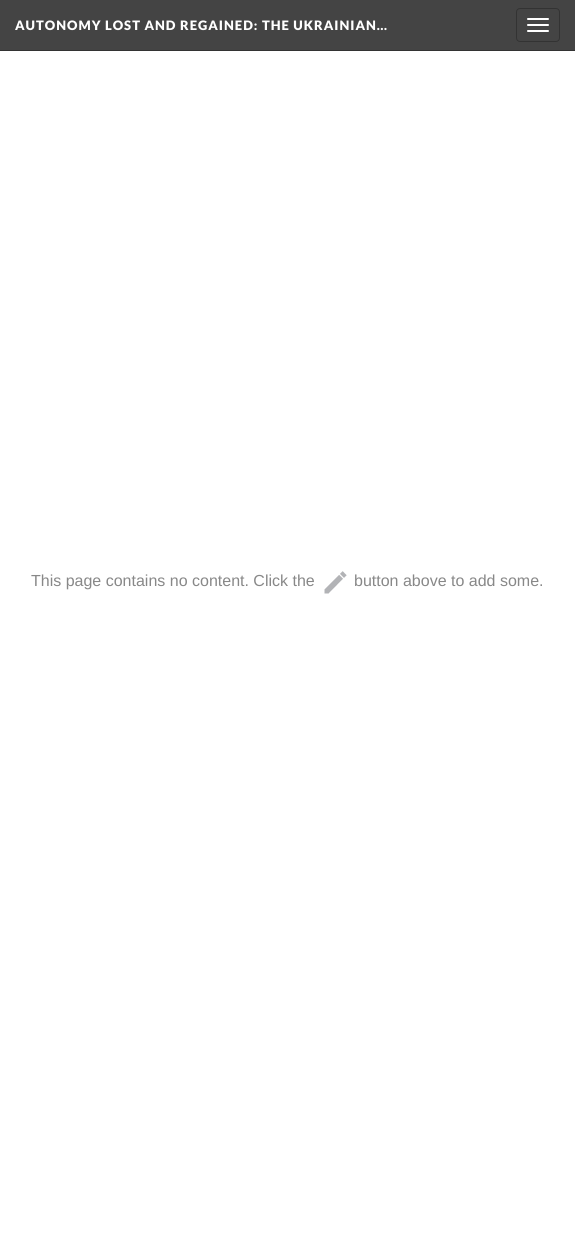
#include <cairo.h>
#include <math.h>
#include <stddef.h>


static void rgb(cairo_t *cr, int r, int g, int b)
{
	cairo_set_source_rgb(cr, r / 255.0, g / 255.0, b / 255.0);
}

static void face(cairo_t *cr, const char *family, double size, int italic, int bold)
{
	cairo_select_font_face(cr, family, italic ? CAIRO_FONT_SLANT_ITALIC : CAIRO_FONT_SLANT_NORMAL,
		bold ? CAIRO_FONT_WEIGHT_BOLD : CAIRO_FONT_WEIGHT_NORMAL);
	cairo_set_font_size(cr, size);
}

static void label(cairo_t *cr, double x, double y, const char *s)
{
	cairo_move_to(cr, x, y);
	cairo_show_text(cr, s);
}

static void tracked(cairo_t *cr, double x, double y, const char *s, double letter, double word)
{
	cairo_move_to(cr, x, y);
	while (*s) {
		char ch[5] = {0};
		int n = 0;
		do ch[n++] = *s++; while ((*s & 0xC0) == 0x80);
		cairo_show_text(cr, ch);
		cairo_rel_move_to(cr, letter + word * (*ch == ' '), 0);
	}
}

static void rect(cairo_t *cr, double x, double y, double w, double h)
{
	cairo_rectangle(cr, x, y, w, h);
	cairo_fill(cr);
}

static void rrect(cairo_t *cr, double x, double y, double w, double h, double r)
{
	cairo_new_sub_path(cr);
	cairo_arc(cr, x + w - r, y + h - r, r, 0, M_PI / 2);
	cairo_arc(cr, x + r, y + h - r, r, M_PI / 2, M_PI);
	cairo_arc(cr, x + r, y + r, r, M_PI, 1.5 * M_PI);
	cairo_arc(cr, x + w - r, y + r, r, 1.5 * M_PI, 2 * M_PI);
	cairo_close_path(cr);
}

static void image(cairo_t *cr, const char *path, double x, double y, double w, double h)
{
	cairo_surface_t *image = cairo_image_surface_create_from_png(path);
	cairo_save(cr);
	cairo_set_source_surface(cr, image, x, y);
	cairo_rectangle(cr, x, y, w, h);
	cairo_fill(cr);
	cairo_restore(cr);
	cairo_surface_destroy(image);
}

static void draw(cairo_t *cr) {
	rgb(cr, 255, 255, 255);
	cairo_paint(cr);
	rgb(cr, 68, 68, 68);
	rect(cr, 0, 0, 575, 50);
	rgb(cr, 51, 51, 51);
	rect(cr, 0, 50, 575, 1);
	face(cr, "Lato Black", 13, 0, 0);
	rgb(cr, 255, 255, 255);
	tracked(cr, 15, 30, "AUTONOMY LOST AND REGAINED: THE UKRAINIAN…", 1, 0);
	rrect(cr, 516.5, 8.5, 43, 33, 3.5);
	rgb(cr, 51, 51, 51);
	cairo_set_line_width(cr, 1);
	cairo_stroke(cr);
	rgb(cr, 255, 255, 255);
	rrect(cr, 527, 18, 22, 2, 1);
	cairo_fill(cr);
	rrect(cr, 527, 24, 22, 2, 1);
	cairo_fill(cr);
	rrect(cr, 527, 30, 22, 2, 1);
	cairo_fill(cr);
	face(cr, "Liberation Sans", 16, 0, 0);
	rgb(cr, 136, 136, 136);
	label(cr, 31, 586, "This page contains no content. Click the");
	image(cr, "image0.png", 324, 571, 23, 23);
	label(cr, 354, 586, "button above to add some.");
}

int main(void) {
	cairo_surface_t *surface = cairo_image_surface_create(CAIRO_FORMAT_RGB24, 575, 1260);
	cairo_t *cr = cairo_create(surface);
	cairo_font_options_t *options = cairo_font_options_create();
	cairo_font_options_set_hint_metrics(options, CAIRO_HINT_METRICS_OFF);
	cairo_font_options_set_hint_style(options, CAIRO_HINT_STYLE_NONE);
	cairo_set_font_options(cr, options);
	cairo_set_miter_limit(cr, 4);
	draw(cr);
	cairo_surface_write_to_png(surface, "render.png");
	cairo_font_options_destroy(options);
	cairo_destroy(cr);
	cairo_surface_destroy(surface);
	return 0;
}
